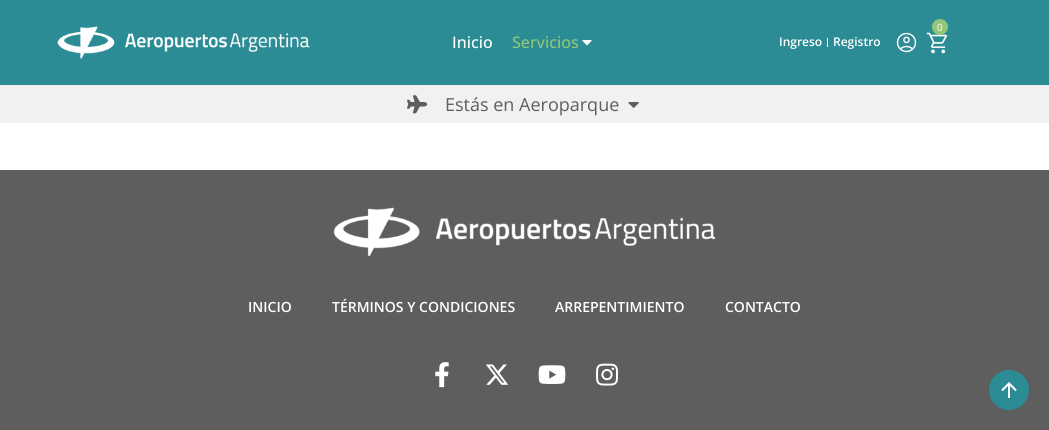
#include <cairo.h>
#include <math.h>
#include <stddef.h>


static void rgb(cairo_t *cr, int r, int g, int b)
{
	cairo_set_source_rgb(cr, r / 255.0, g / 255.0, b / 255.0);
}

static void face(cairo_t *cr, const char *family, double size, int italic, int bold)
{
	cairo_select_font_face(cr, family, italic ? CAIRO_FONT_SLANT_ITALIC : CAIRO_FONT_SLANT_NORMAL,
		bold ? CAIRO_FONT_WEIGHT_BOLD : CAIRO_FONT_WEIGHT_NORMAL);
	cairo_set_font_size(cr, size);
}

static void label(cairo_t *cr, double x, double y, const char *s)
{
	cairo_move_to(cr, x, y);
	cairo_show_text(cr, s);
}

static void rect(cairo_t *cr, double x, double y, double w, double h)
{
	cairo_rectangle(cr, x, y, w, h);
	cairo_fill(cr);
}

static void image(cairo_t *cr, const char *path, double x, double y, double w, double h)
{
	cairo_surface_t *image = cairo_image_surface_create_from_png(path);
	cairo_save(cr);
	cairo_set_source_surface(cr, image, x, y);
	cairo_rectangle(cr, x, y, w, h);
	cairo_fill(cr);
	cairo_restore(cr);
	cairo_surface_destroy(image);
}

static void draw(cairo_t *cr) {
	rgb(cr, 255, 255, 255);
	cairo_paint(cr);
	rgb(cr, 44, 140, 149);
	rect(cr, 0, 0, 1049, 85);
	image(cr, "image0.png", 57, 26, 253, 33);
	face(cr, "Open Sans Medium", 16, 0, 0);
	rgb(cr, 255, 255, 255);
	label(cr, 452, 48, "Inicio");
	rgb(cr, 147, 197, 119);
	label(cr, 512, 48, "Servicios");
	image(cr, "image1.png", 582, 40, 10, 6);
	image(cr, "image2.png", 926, 32, 21, 22);
	cairo_arc(cr, 940, 27, 8, 0, 2 * M_PI);
	cairo_fill(cr);
	face(cr, "Open Sans", 10, 0, 0);
	rgb(cr, 255, 255, 255);
	label(cr, 937, 31, "0");
	face(cr, "Open Sans SemiBold", 12, 0, 0);
	label(cr, 779, 46, "Ingreso");
	rect(cr, 827, 38, 1, 9);
	label(cr, 833, 46, "Registro");
	image(cr, "image3.png", 896, 32, 21, 21);
	rgb(cr, 241, 241, 241);
	rect(cr, 0, 85, 1049, 38);
	image(cr, "image4.png", 407, 95, 21, 19);
	face(cr, "Open Sans", 18, 0, 0);
	rgb(cr, 95, 94, 94);
	label(cr, 445, 111, "Estás en Aeroparque");
	image(cr, "image5.png", 628, 102, 11, 6);
	rect(cr, 0, 170, 1049, 260);
	image(cr, "image6.png", 333, 207, 383, 50);
	face(cr, "Open Sans SemiBold", 14, 0, 0);
	rgb(cr, 255, 255, 255);
	label(cr, 248, 312, "INICIO");
	label(cr, 332, 312, "TÉRMINOS Y CONDICIONES");
	label(cr, 555, 312, "ARREPENTIMIENTO");
	label(cr, 725, 312, "CONTACTO");
	image(cr, "image7.png", 435, 362, 14, 26);
	image(cr, "image8.png", 486, 364, 23, 21);
	image(cr, "image9.png", 538, 365, 28, 19);
	image(cr, "image10.png", 596, 363, 22, 23);
	rgb(cr, 44, 140, 149);
	cairo_arc(cr, 1009, 390, 20, 0, 2 * M_PI);
	cairo_fill(cr);
	image(cr, "image11.png", 1001, 382, 16, 16);
}

int main(void) {
	cairo_surface_t *surface = cairo_image_surface_create(CAIRO_FORMAT_RGB24, 1049, 430);
	cairo_t *cr = cairo_create(surface);
	cairo_font_options_t *options = cairo_font_options_create();
	cairo_font_options_set_hint_metrics(options, CAIRO_HINT_METRICS_OFF);
	cairo_font_options_set_hint_style(options, CAIRO_HINT_STYLE_NONE);
	cairo_set_font_options(cr, options);
	cairo_set_miter_limit(cr, 4);
	draw(cr);
	cairo_surface_write_to_png(surface, "render.png");
	cairo_font_options_destroy(options);
	cairo_destroy(cr);
	cairo_surface_destroy(surface);
	return 0;
}
